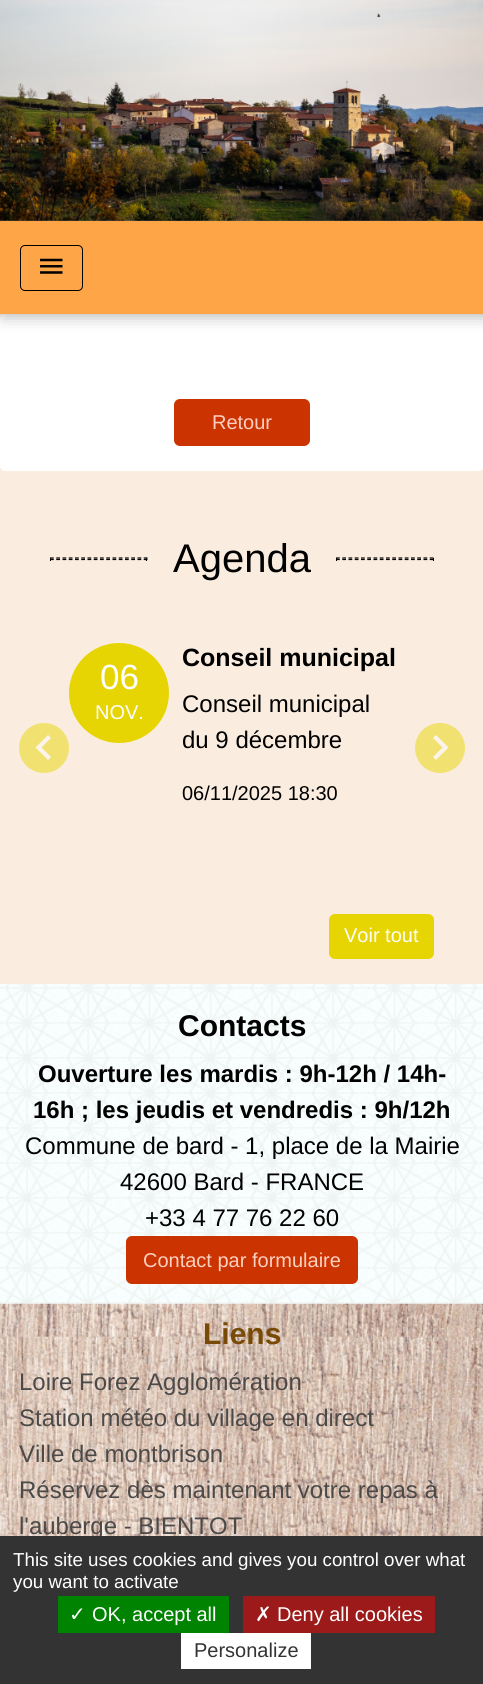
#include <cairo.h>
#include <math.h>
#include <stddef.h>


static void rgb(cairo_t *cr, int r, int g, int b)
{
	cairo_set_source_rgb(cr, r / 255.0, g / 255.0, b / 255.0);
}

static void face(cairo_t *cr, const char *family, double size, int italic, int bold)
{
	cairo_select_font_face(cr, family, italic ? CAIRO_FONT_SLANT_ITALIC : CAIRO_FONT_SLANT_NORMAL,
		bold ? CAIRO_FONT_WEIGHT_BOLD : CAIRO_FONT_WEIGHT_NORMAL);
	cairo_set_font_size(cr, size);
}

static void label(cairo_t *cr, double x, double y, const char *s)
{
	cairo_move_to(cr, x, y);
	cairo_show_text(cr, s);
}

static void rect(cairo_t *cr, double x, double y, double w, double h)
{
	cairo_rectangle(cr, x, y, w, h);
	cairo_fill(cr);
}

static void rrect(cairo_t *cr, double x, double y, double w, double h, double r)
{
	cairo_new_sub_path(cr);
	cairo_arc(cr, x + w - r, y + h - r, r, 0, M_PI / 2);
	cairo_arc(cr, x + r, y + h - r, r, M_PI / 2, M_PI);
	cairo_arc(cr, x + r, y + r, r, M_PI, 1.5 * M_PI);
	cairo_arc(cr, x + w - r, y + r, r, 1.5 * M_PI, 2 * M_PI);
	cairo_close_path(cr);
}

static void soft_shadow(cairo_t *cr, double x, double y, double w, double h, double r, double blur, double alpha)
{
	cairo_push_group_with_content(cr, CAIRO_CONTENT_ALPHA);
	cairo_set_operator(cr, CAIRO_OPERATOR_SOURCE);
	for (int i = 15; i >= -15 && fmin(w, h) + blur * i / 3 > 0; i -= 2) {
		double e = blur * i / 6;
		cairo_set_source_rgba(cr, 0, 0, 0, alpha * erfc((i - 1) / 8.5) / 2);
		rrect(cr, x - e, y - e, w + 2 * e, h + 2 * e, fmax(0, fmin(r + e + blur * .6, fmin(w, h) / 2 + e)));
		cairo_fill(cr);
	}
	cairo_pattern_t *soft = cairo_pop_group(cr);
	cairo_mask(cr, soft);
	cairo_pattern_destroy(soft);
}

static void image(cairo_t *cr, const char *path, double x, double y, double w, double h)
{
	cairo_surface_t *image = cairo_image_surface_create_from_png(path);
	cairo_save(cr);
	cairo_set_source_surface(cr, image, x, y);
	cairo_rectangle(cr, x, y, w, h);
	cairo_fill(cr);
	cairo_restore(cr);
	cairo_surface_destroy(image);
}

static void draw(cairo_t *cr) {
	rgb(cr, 250, 237, 223);
	cairo_paint(cr);
	image(cr, "image0.png", 0, 0, 483, 222);
	rgb(cr, 255, 255, 255);
	rrect(cr, 0, 314, 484, 157, 5);
	cairo_fill(cr);
	cairo_save(cr);
	cairo_set_fill_rule(cr, CAIRO_FILL_RULE_EVEN_ODD);
	cairo_new_path(cr);
	cairo_move_to(cr, 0, 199);
	cairo_line_to(cr, 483, 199);
	cairo_line_to(cr, 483, 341);
	cairo_line_to(cr, 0, 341);
	cairo_close_path(cr);
	cairo_move_to(cr, 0, 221);
	cairo_line_to(cr, 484, 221);
	cairo_line_to(cr, 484, 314);
	cairo_line_to(cr, 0, 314);
	cairo_close_path(cr);
	cairo_clip(cr);
	rgb(cr, 0, 0, 0);
	soft_shadow(cr, 3, 224, 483, 92, 0, 8, 0.3);
	cairo_restore(cr);
	cairo_set_source_rgba(cr, 1, 0.529, 0.035, 0.71);
	rect(cr, 0, 221, 483, 93);
	rrect(cr, 20.5, 245.5, 62, 45, 4.5);
	rgb(cr, 0, 0, 0);
	cairo_set_line_width(cr, 1);
	cairo_stroke(cr);
	image(cr, "image1.png", 40, 258, 23, 16);
	rgb(cr, 203, 51, 1);
	rrect(cr, 174, 399, 136, 47, 6);
	cairo_fill(cr);
	face(cr, "Liberation Sans", 20, 0, 0);
	rgb(cr, 255, 208, 193);
	label(cr, 212, 429, "Retour");
	cairo_new_path(cr);
	cairo_move_to(cr, 50, 558);
	cairo_line_to(cr, 147.5, 558);
	rgb(cr, 0, 0, 0);
	cairo_set_line_width(cr, 1.2);
	cairo_set_dash(cr, (double[]){3.75, 2.5}, 2, 0);
	cairo_stroke(cr);
	rect(cr, 146, 558, 1, 3);
	cairo_new_path(cr);
	cairo_move_to(cr, 50, 559.5);
	cairo_line_to(cr, 147.5, 559.5);
	cairo_stroke(cr);
	rect(cr, 50, 558, 1, 3);
	face(cr, "Liberation Sans", 40, 0, 0);
	label(cr, 173, 572, "Agenda");
	cairo_new_path(cr);
	cairo_move_to(cr, 336, 558);
	cairo_line_to(cr, 434, 558);
	cairo_stroke(cr);
	rect(cr, 433, 558, 1, 3);
	cairo_new_path(cr);
	cairo_move_to(cr, 336, 559.5);
	cairo_line_to(cr, 434, 559.5);
	cairo_stroke(cr);
	rect(cr, 336, 558, 1, 3);
	rgb(cr, 241, 225, 113);
	cairo_arc(cr, 44, 748, 25, 0, 2 * M_PI);
	cairo_fill(cr);
	rgb(cr, 252, 244, 235);
	cairo_new_path(cr);
	cairo_move_to(cr, 51, 738);
	cairo_line_to(cr, 41.5, 747.5);
	cairo_line_to(cr, 51, 757);
	cairo_line_to(cr, 48, 760);
	cairo_line_to(cr, 35.5, 747.5);
	cairo_line_to(cr, 48, 735);
	cairo_close_path(cr);
	cairo_fill(cr);
	rgb(cr, 231, 212, 3);
	cairo_arc(cr, 119, 693, 50, 0, 2 * M_PI);
	cairo_fill(cr);
	face(cr, "Liberation Sans", 35, 0, 0);
	rgb(cr, 255, 255, 255);
	label(cr, 100, 689, "06");
	face(cr, "Liberation Sans", 20, 0, 0);
	label(cr, 95, 719, "NOV.");
	face(cr, "Liberation Sans", 25, 0, 1);
	rgb(cr, 0, 0, 0);
	label(cr, 182, 666, "Conseil municipal");
	face(cr, "Liberation Sans", 24, 0, 0);
	label(cr, 182, 712, "Conseil municipal");
	label(cr, 182, 748, "du 9 décembre");
	face(cr, "Liberation Sans", 20, 0, 0);
	label(cr, 182, 800, "06/11/2025 18:30");
	rgb(cr, 241, 225, 113);
	cairo_new_path(cr);
	cairo_arc(cr, 440, 748, 25, 0, 2 * M_PI);
	cairo_fill(cr);
	rgb(cr, 252, 244, 235);
	cairo_new_path(cr);
	cairo_move_to(cr, 436, 735);
	cairo_line_to(cr, 448.5, 747.5);
	cairo_line_to(cr, 436, 760);
	cairo_line_to(cr, 433, 757);
	cairo_line_to(cr, 442.5, 747.5);
	cairo_line_to(cr, 433, 738);
	cairo_close_path(cr);
	cairo_fill(cr);
	rgb(cr, 231, 212, 3);
	rrect(cr, 329, 914, 105, 45, 6);
	cairo_fill(cr);
	rgb(cr, 255, 255, 255);
	label(cr, 344, 942, "Voir tout");
	rgb(cr, 249, 255, 254);
	rect(cr, 0, 984, 483, 320);
	image(cr, "image2.png", 0, 984, 483, 320);
	face(cr, "Liberation Sans", 30, 0, 1);
	rgb(cr, 0, 0, 0);
	label(cr, 178, 1036, "Contacts");
	face(cr, "Liberation Sans", 24, 0, 1);
	label(cr, 38, 1082, "Ouverture les mardis : 9h-12h / 14h-");
	label(cr, 33, 1118, "16h ; les jeudis et vendredis : 9h/12h");
	face(cr, "Liberation Sans", 24, 0, 0);
	label(cr, 25, 1154, "Commune de bard - 1, place de la Mairie");
	label(cr, 120, 1190, "42600 Bard - FRANCE");
	label(cr, 145, 1226, "+33 4 77 76 22 60");
	rgb(cr, 203, 51, 1);
	rrect(cr, 126, 1236, 232, 48, 6);
	cairo_fill(cr);
	face(cr, "Liberation Sans", 20, 0, 0);
	rgb(cr, 255, 208, 193);
	label(cr, 143, 1267, "Contact par formulaire");
	image(cr, "image3.png", 0, 1303, 483, 233);
	face(cr, "Liberation Sans", 30, 0, 1);
	rgb(cr, 120, 74, 6);
	label(cr, 203, 1344, "Liens");
	face(cr, "Liberation Sans", 24, 0, 0);
	rgb(cr, 76, 74, 73);
	label(cr, 19, 1390, "Loire Forez Agglomération");
	label(cr, 19, 1426, "Station météo du village en direct");
	label(cr, 19, 1462, "Ville de montbrison");
	label(cr, 19, 1498, "Réservez dès maintenant votre repas à");
	label(cr, 19, 1534, "l'auberge - BIENTOT");
	rgb(cr, 51, 51, 51);
	rect(cr, 0, 1536, 483, 148);
	face(cr, "Liberation Sans", 18.75, 0, 0);
	rgb(cr, 255, 255, 255);
	label(cr, 13, 1566, "This site uses cookies and gives you control over what");
	label(cr, 13, 1588, "you want to activate");
	rgb(cr, 0, 131, 0);
	rect(cr, 58, 1596, 171, 37);
	face(cr, "DejaVu Sans", 20, 0, 0);
	rgb(cr, 255, 255, 255);
	label(cr, 69, 1621, "✓");
	face(cr, "Liberation Sans", 20, 0, 0);
	label(cr, 92, 1621, "OK, accept all");
	rgb(cr, 156, 26, 26);
	rect(cr, 243, 1596, 192, 37);
	face(cr, "DejaVu Sans", 20, 0, 0);
	rgb(cr, 255, 255, 255);
	label(cr, 255, 1621, "✗");
	face(cr, "Liberation Sans", 20, 0, 0);
	label(cr, 277, 1621, "Deny all cookies");
	rect(cr, 181, 1633, 130, 36);
	rgb(cr, 51, 51, 51);
	label(cr, 194, 1657, "Personalize");
}

int main(void) {
	cairo_surface_t *surface = cairo_image_surface_create(CAIRO_FORMAT_RGB24, 483, 1684);
	cairo_t *cr = cairo_create(surface);
	cairo_font_options_t *options = cairo_font_options_create();
	cairo_font_options_set_hint_metrics(options, CAIRO_HINT_METRICS_OFF);
	cairo_font_options_set_hint_style(options, CAIRO_HINT_STYLE_NONE);
	cairo_set_font_options(cr, options);
	cairo_set_miter_limit(cr, 4);
	draw(cr);
	cairo_surface_write_to_png(surface, "render.png");
	cairo_font_options_destroy(options);
	cairo_destroy(cr);
	cairo_surface_destroy(surface);
	return 0;
}
